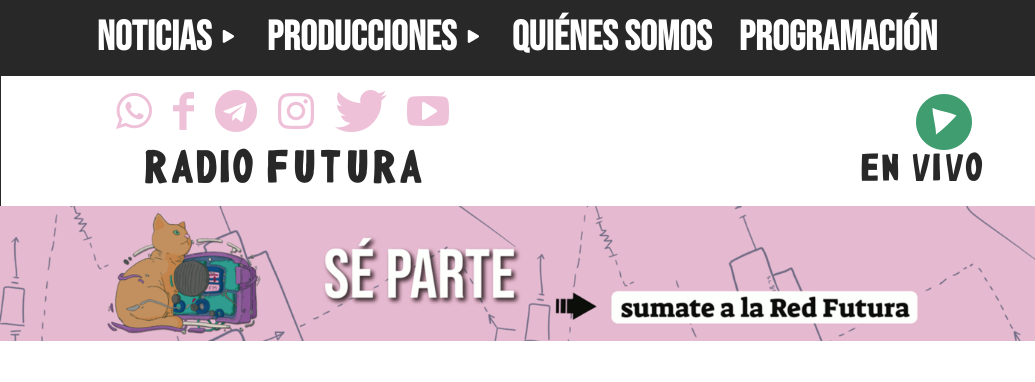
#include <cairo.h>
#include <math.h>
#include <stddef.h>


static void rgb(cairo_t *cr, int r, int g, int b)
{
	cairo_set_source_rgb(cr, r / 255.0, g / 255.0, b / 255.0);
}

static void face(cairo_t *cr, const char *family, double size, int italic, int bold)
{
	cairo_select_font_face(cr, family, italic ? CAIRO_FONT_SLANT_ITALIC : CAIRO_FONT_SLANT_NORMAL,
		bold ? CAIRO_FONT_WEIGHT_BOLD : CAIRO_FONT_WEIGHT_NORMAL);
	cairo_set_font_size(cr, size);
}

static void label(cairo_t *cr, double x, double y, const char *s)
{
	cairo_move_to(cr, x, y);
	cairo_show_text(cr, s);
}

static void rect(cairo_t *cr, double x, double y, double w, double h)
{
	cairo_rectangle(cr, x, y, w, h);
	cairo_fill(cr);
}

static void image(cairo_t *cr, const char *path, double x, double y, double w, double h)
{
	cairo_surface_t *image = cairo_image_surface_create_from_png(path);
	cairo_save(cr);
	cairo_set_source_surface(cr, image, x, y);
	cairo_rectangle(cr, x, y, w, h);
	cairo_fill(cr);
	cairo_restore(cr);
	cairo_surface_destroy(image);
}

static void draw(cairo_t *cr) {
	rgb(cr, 255, 255, 255);
	cairo_paint(cr);
	rgb(cr, 40, 40, 40);
	rect(cr, 0, 0, 1035, 206);
	face(cr, "Bebas Neue", 42, 0, 1);
	rgb(cr, 255, 255, 255);
	label(cr, 97, 50, "NOTICIAS");
	image(cr, "image0.png", 222, 29, 12, 14);
	label(cr, 267, 50, "PRODUCCIONES");
	image(cr, "image0.png", 467, 29, 12, 14);
	label(cr, 512, 50, "QUIÉNES SOMOS");
	label(cr, 739, 50, "PROGRAMACIÓN");
	rect(cr, 1, 76, 1034, 130);
	image(cr, "image1.png", 116, 92, 36, 37);
	image(cr, "image2.png", 173, 92, 21, 38);
	image(cr, "image3.png", 215, 90, 42, 42);
	image(cr, "image4.png", 278, 93, 36, 36);
	image(cr, "image5.png", 335, 90, 52, 42);
	image(cr, "image6.png", 407, 96, 42, 30);
	face(cr, "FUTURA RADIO", 42, 0, 0);
	rgb(cr, 40, 40, 40);
	label(cr, 142, 183, "RADIO FUTURA");
	rgb(cr, 63, 157, 112);
	cairo_new_path(cr);
	cairo_arc(cr, 944, 122, 28, 0, 2 * M_PI);
	cairo_fill(cr);
	rgb(cr, 255, 255, 255);
	cairo_new_path(cr);
	cairo_move_to(cr, 932.5, 108);
	cairo_curve_to(cr, 932.5, 115, 936, 126.5, 936, 134.5);
	cairo_curve_to(cr, 943, 129.5, 950.5, 122, 956.5, 115.5);
	cairo_curve_to(cr, 948, 111.5, 942, 112, 932.5, 108);
	cairo_fill(cr);
	face(cr, "FUTURA RADIO", 35, 0, 0);
	rgb(cr, 40, 40, 40);
	label(cr, 860, 181, "EN VIVO");
	image(cr, "image7.png", 0, 206, 1035, 135);
}

int main(void) {
	cairo_surface_t *surface = cairo_image_surface_create(CAIRO_FORMAT_RGB24, 1035, 382);
	cairo_t *cr = cairo_create(surface);
	cairo_font_options_t *options = cairo_font_options_create();
	cairo_font_options_set_hint_metrics(options, CAIRO_HINT_METRICS_OFF);
	cairo_font_options_set_hint_style(options, CAIRO_HINT_STYLE_NONE);
	cairo_set_font_options(cr, options);
	cairo_set_miter_limit(cr, 4);
	draw(cr);
	cairo_surface_write_to_png(surface, "render.png");
	cairo_font_options_destroy(options);
	cairo_destroy(cr);
	cairo_surface_destroy(surface);
	return 0;
}
